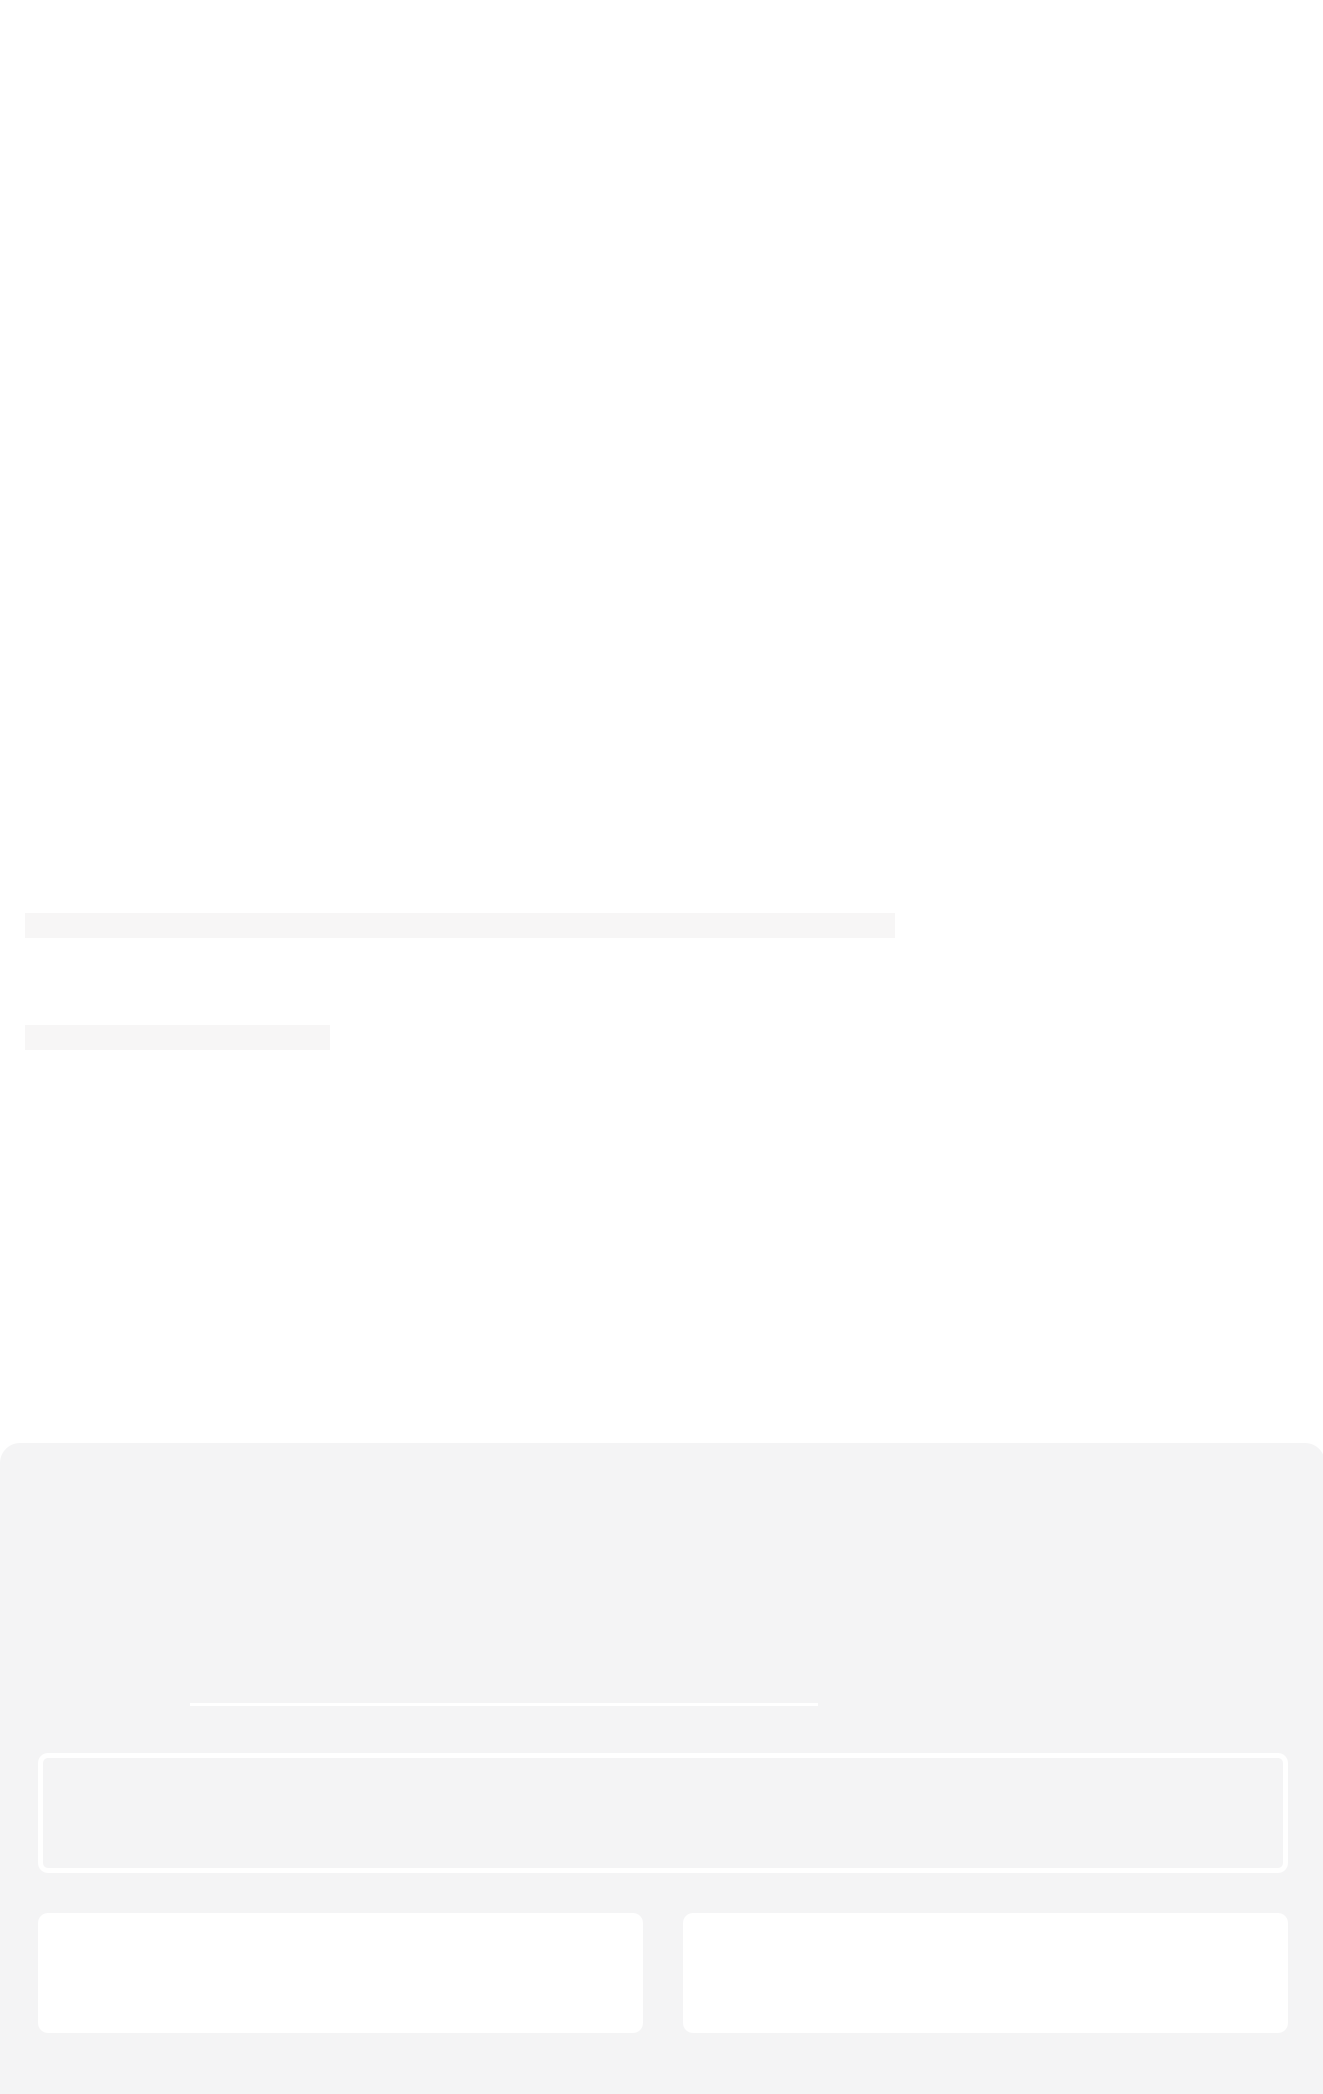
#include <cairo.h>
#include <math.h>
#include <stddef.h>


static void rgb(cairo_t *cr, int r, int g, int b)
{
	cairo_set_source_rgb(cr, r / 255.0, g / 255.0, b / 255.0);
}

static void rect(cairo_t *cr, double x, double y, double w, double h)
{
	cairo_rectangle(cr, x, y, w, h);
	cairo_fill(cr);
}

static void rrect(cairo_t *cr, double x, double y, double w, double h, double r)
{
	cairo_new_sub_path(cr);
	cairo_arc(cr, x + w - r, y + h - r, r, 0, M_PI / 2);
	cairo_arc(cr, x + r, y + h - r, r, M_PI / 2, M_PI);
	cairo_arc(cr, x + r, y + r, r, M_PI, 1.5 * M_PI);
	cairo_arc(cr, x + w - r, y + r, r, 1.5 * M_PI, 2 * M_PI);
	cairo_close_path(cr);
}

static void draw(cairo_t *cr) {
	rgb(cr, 255, 255, 255);
	cairo_paint(cr);
	rgb(cr, 247, 246, 246);
	rect(cr, 25, 913, 870, 25);
	rect(cr, 25, 1025, 305, 25);
	rgb(cr, 244, 244, 245);
	cairo_new_path(cr);
	cairo_move_to(cr, 20, 1443);
	cairo_line_to(cr, 1305, 1443);
	cairo_curve_to(cr, 1316, 1443, 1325, 1452, 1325, 1463);
	cairo_line_to(cr, 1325, 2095);
	cairo_line_to(cr, 0, 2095);
	cairo_line_to(cr, 0, 1463);
	cairo_curve_to(cr, 0, 1452, 9, 1443, 20, 1443);
	cairo_close_path(cr);
	cairo_fill(cr);
	rgb(cr, 255, 255, 255);
	rect(cr, 190, 1703, 628, 3);
	rrect(cr, 40.5, 1755.5, 1245, 115, 7.5);
	cairo_set_line_width(cr, 5);
	cairo_stroke(cr);
	rrect(cr, 38, 1913, 605, 120, 10);
	cairo_fill(cr);
	rrect(cr, 683, 1913, 605, 120, 10);
	cairo_fill(cr);
}

int main(void) {
	cairo_surface_t *surface = cairo_image_surface_create(CAIRO_FORMAT_RGB24, 1323, 2094);
	cairo_t *cr = cairo_create(surface);
	cairo_font_options_t *options = cairo_font_options_create();
	cairo_font_options_set_hint_metrics(options, CAIRO_HINT_METRICS_OFF);
	cairo_font_options_set_hint_style(options, CAIRO_HINT_STYLE_NONE);
	cairo_set_font_options(cr, options);
	cairo_set_miter_limit(cr, 4);
	draw(cr);
	cairo_surface_write_to_png(surface, "render.png");
	cairo_font_options_destroy(options);
	cairo_destroy(cr);
	cairo_surface_destroy(surface);
	return 0;
}
